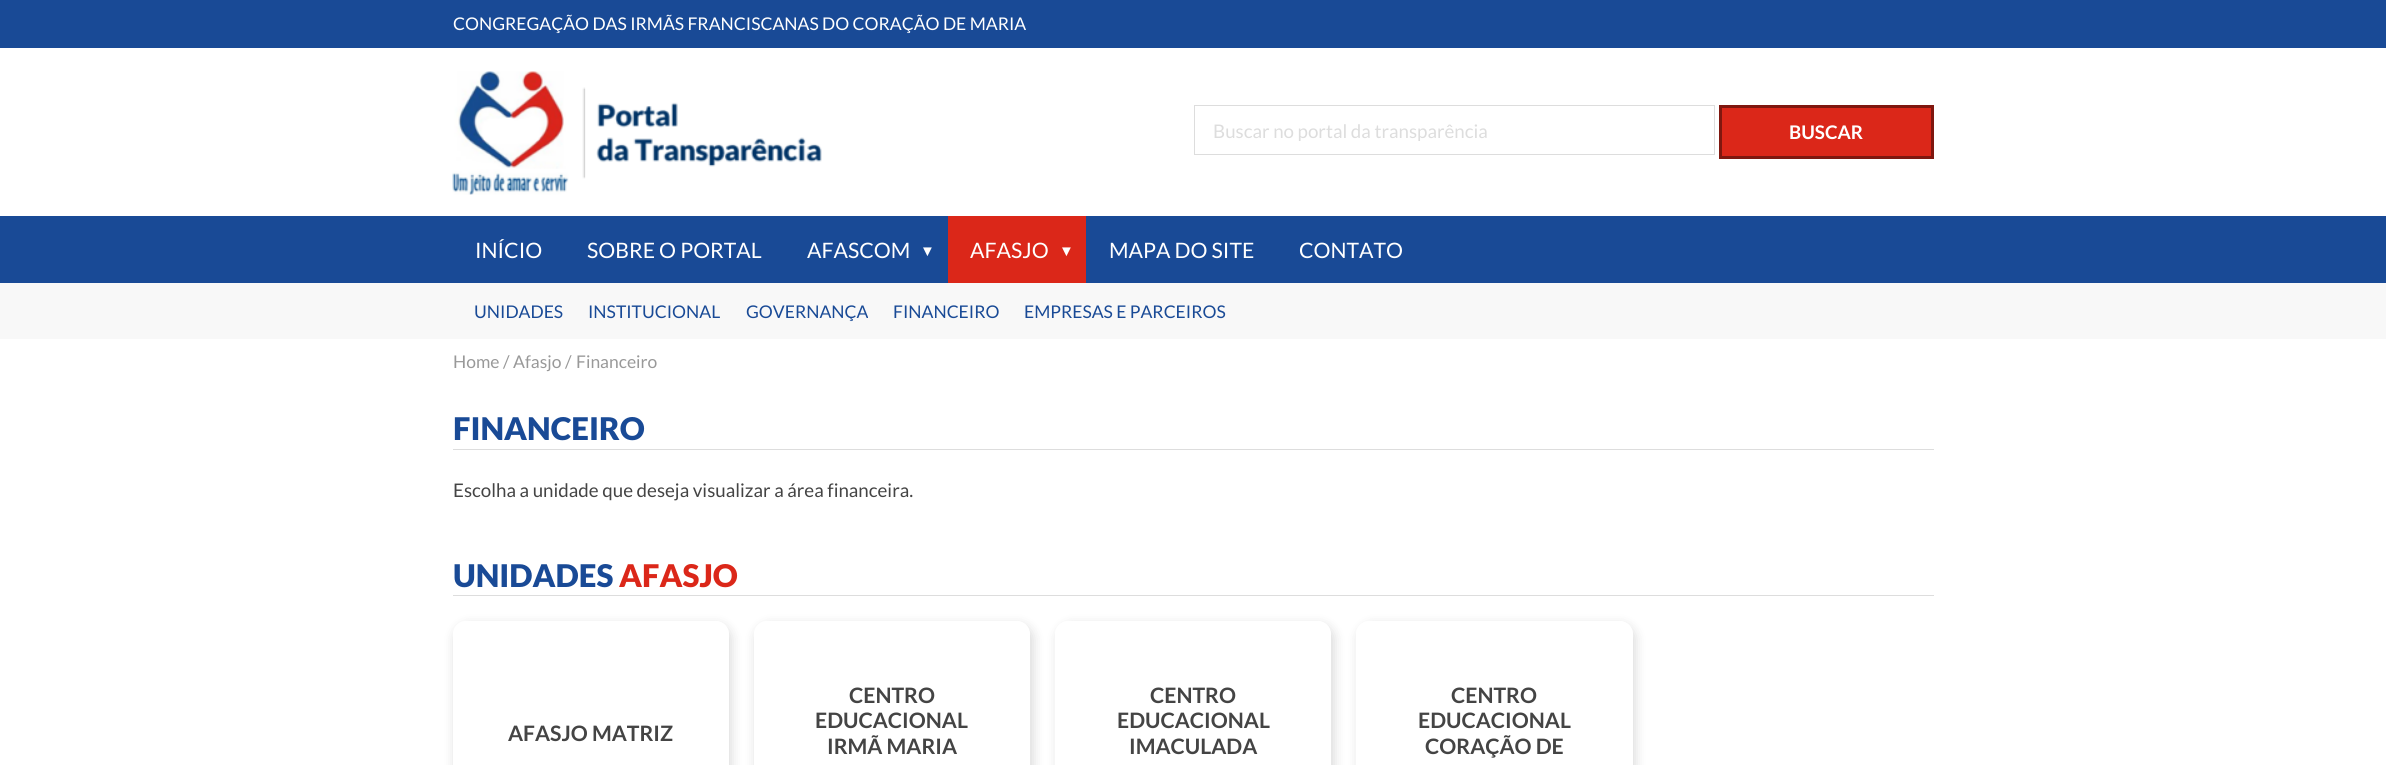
#include <cairo.h>
#include <math.h>
#include <stddef.h>


static void rgb(cairo_t *cr, int r, int g, int b)
{
	cairo_set_source_rgb(cr, r / 255.0, g / 255.0, b / 255.0);
}

static void face(cairo_t *cr, const char *family, double size, int italic, int bold)
{
	cairo_select_font_face(cr, family, italic ? CAIRO_FONT_SLANT_ITALIC : CAIRO_FONT_SLANT_NORMAL,
		bold ? CAIRO_FONT_WEIGHT_BOLD : CAIRO_FONT_WEIGHT_NORMAL);
	cairo_set_font_size(cr, size);
}

static void label(cairo_t *cr, double x, double y, const char *s)
{
	cairo_move_to(cr, x, y);
	cairo_show_text(cr, s);
}

static void rect(cairo_t *cr, double x, double y, double w, double h)
{
	cairo_rectangle(cr, x, y, w, h);
	cairo_fill(cr);
}

static void rrect(cairo_t *cr, double x, double y, double w, double h, double r)
{
	cairo_new_sub_path(cr);
	cairo_arc(cr, x + w - r, y + h - r, r, 0, M_PI / 2);
	cairo_arc(cr, x + r, y + h - r, r, M_PI / 2, M_PI);
	cairo_arc(cr, x + r, y + r, r, M_PI, 1.5 * M_PI);
	cairo_arc(cr, x + w - r, y + r, r, 1.5 * M_PI, 2 * M_PI);
	cairo_close_path(cr);
}

static void soft_shadow(cairo_t *cr, double x, double y, double w, double h, double r, double blur, double alpha)
{
	cairo_push_group_with_content(cr, CAIRO_CONTENT_ALPHA);
	cairo_set_operator(cr, CAIRO_OPERATOR_SOURCE);
	for (int i = 15; i >= -15 && fmin(w, h) + blur * i / 3 > 0; i -= 2) {
		double e = blur * i / 6;
		cairo_set_source_rgba(cr, 0, 0, 0, alpha * erfc((i - 1) / 8.5) / 2);
		rrect(cr, x - e, y - e, w + 2 * e, h + 2 * e, fmax(0, fmin(r + e + blur * .6, fmin(w, h) / 2 + e)));
		cairo_fill(cr);
	}
	cairo_pattern_t *soft = cairo_pop_group(cr);
	cairo_mask(cr, soft);
	cairo_pattern_destroy(soft);
}

static void image(cairo_t *cr, const char *path, double x, double y, double w, double h)
{
	cairo_surface_t *image = cairo_image_surface_create_from_png(path);
	cairo_save(cr);
	cairo_set_source_surface(cr, image, x, y);
	cairo_rectangle(cr, x, y, w, h);
	cairo_fill(cr);
	cairo_restore(cr);
	cairo_surface_destroy(image);
}

static void draw(cairo_t *cr) {
	rgb(cr, 255, 255, 255);
	cairo_paint(cr);
	rgb(cr, 25, 74, 150);
	rect(cr, 0, 0, 2386, 48);
	face(cr, "Lato", 17.5, 0, 0);
	rgb(cr, 255, 255, 255);
	label(cr, 453, 30, "CONGREGAÇÃO DAS IRMÃS FRANCISCANAS DO CORAÇÃO DE MARIA");
	image(cr, "image0.png", 452, 71, 370, 124);
	cairo_rectangle(cr, 1194.5, 105.5, 520, 49);
	rgb(cr, 221, 221, 221);
	cairo_set_line_width(cr, 1);
	cairo_stroke(cr);
	cairo_save(cr);
	cairo_rectangle(cr, 1214, 119, 464, 22);
	cairo_clip(cr);
	face(cr, "Lato", 18.75, 0, 0);
	label(cr, 1213, 138, "Buscar no portal da transparência");
	cairo_restore(cr);
	rgb(cr, 219, 39, 25);
	cairo_rectangle(cr, 1720.5, 106.5, 212, 51);
	cairo_fill_preserve(cr);
	rgb(cr, 127, 23, 15);
	cairo_set_line_width(cr, 3);
	cairo_stroke(cr);
	face(cr, "Lato", 18.75, 0, 1);
	rgb(cr, 255, 255, 255);
	label(cr, 1789, 139, "BUSCAR");
	rgb(cr, 25, 74, 150);
	rect(cr, 0, 216, 2386, 67);
	face(cr, "Lato", 21.25, 0, 0);
	rgb(cr, 255, 255, 255);
	label(cr, 475, 258, "INÍCIO");
	rgb(cr, 219, 39, 25);
	rect(cr, 948, 216, 138, 67);
	rgb(cr, 255, 255, 255);
	label(cr, 970, 258, "AFASJO");
	face(cr, "Liberation Sans", 15, 0, 0);
	label(cr, 1059, 256, "▼");
	rgb(cr, 248, 248, 248);
	rect(cr, 0, 283, 2386, 56);
	face(cr, "Lato", 17.5, 0, 0);
	rgb(cr, 25, 74, 150);
	label(cr, 474, 318, "UNIDADES");
	label(cr, 588, 318, "INSTITUCIONAL");
	label(cr, 746, 318, "GOVERNANÇA");
	label(cr, 893, 318, "FINANCEIRO");
	label(cr, 1024, 318, "EMPRESAS E PARCEIROS");
	face(cr, "Lato", 21.25, 0, 0);
	rgb(cr, 255, 255, 255);
	label(cr, 587, 258, "SOBRE O PORTAL");
	label(cr, 807, 258, "AFASCOM");
	face(cr, "Liberation Sans", 15, 0, 0);
	label(cr, 920, 256, "▼");
	face(cr, "Lato", 21.25, 0, 0);
	label(cr, 1109, 258, "MAPA DO SITE");
	label(cr, 1299, 258, "CONTATO");
	face(cr, "Lato", 17.5, 0, 0);
	rgb(cr, 153, 153, 153);
	label(cr, 453, 368, "Home");
	label(cr, 503, 368, "/");
	label(cr, 513, 368, "Afasjo");
	label(cr, 565, 368, "/");
	label(cr, 576, 368, "Financeiro");
	face(cr, "Lato Black", 31.25, 0, 0);
	rgb(cr, 25, 74, 150);
	label(cr, 453, 440, "FINANCEIRO");
	rgb(cr, 221, 221, 221);
	rect(cr, 453, 449, 1481, 1);
	face(cr, "Lato", 18.75, 0, 0);
	rgb(cr, 68, 68, 68);
	label(cr, 453, 497, "Escolha a unidade que deseja visualizar a área financeira.");
	face(cr, "Lato Black", 31.25, 0, 0);
	rgb(cr, 25, 74, 150);
	label(cr, 453, 587, "UNIDADES");
	rgb(cr, 219, 39, 25);
	label(cr, 619, 587, "AFASJO");
	rgb(cr, 221, 221, 221);
	rect(cr, 453, 595, 1481, 1);
	cairo_save(cr);
	cairo_set_fill_rule(cr, CAIRO_FILL_RULE_EVEN_ODD);
	cairo_new_path(cr);
	cairo_move_to(cr, 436, 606);
	cairo_line_to(cr, 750, 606);
	cairo_line_to(cr, 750, 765);
	cairo_line_to(cr, 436, 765);
	cairo_close_path(cr);
	cairo_move_to(cr, 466, 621);
	cairo_line_to(cr, 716, 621);
	cairo_curve_to(cr, 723, 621, 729, 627, 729, 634);
	cairo_line_to(cr, 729, 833);
	cairo_curve_to(cr, 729, 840, 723, 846, 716, 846);
	cairo_line_to(cr, 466, 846);
	cairo_curve_to(cr, 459, 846, 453, 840, 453, 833);
	cairo_line_to(cr, 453, 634);
	cairo_curve_to(cr, 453, 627, 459, 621, 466, 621);
	cairo_close_path(cr);
	cairo_clip(cr);
	rgb(cr, 0, 0, 0);
	soft_shadow(cr, 455, 625, 276, 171, 13, 6, 0.15);
	cairo_restore(cr);
	face(cr, "Lato", 21.25, 0, 1);
	rgb(cr, 68, 68, 68);
	label(cr, 508, 741, "AFASJO MATRIZ");
	cairo_save(cr);
	cairo_set_fill_rule(cr, CAIRO_FILL_RULE_EVEN_ODD);
	cairo_new_path(cr);
	cairo_move_to(cr, 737, 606);
	cairo_line_to(cr, 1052, 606);
	cairo_line_to(cr, 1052, 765);
	cairo_line_to(cr, 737, 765);
	cairo_close_path(cr);
	cairo_move_to(cr, 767, 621);
	cairo_line_to(cr, 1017, 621);
	cairo_curve_to(cr, 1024, 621, 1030, 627, 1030, 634);
	cairo_line_to(cr, 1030, 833);
	cairo_curve_to(cr, 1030, 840, 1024, 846, 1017, 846);
	cairo_line_to(cr, 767, 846);
	cairo_curve_to(cr, 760, 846, 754, 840, 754, 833);
	cairo_line_to(cr, 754, 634);
	cairo_curve_to(cr, 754, 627, 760, 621, 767, 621);
	cairo_close_path(cr);
	cairo_clip(cr);
	rgb(cr, 0, 0, 0);
	soft_shadow(cr, 756, 625, 277, 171, 13, 6, 0.15);
	cairo_restore(cr);
	label(cr, 849, 703, "CENTRO");
	label(cr, 815, 728, "EDUCACIONAL");
	label(cr, 827, 754, "IRMÃ MARIA");
	cairo_save(cr);
	cairo_set_fill_rule(cr, CAIRO_FILL_RULE_EVEN_ODD);
	cairo_new_path(cr);
	cairo_move_to(cr, 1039, 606);
	cairo_line_to(cr, 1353, 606);
	cairo_line_to(cr, 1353, 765);
	cairo_line_to(cr, 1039, 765);
	cairo_close_path(cr);
	cairo_move_to(cr, 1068, 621);
	cairo_line_to(cr, 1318, 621);
	cairo_curve_to(cr, 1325, 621, 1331, 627, 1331, 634);
	cairo_line_to(cr, 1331, 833);
	cairo_curve_to(cr, 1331, 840, 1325, 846, 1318, 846);
	cairo_line_to(cr, 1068, 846);
	cairo_curve_to(cr, 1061, 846, 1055, 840, 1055, 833);
	cairo_line_to(cr, 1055, 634);
	cairo_curve_to(cr, 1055, 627, 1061, 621, 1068, 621);
	cairo_close_path(cr);
	cairo_clip(cr);
	rgb(cr, 0, 0, 0);
	soft_shadow(cr, 1058, 625, 276, 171, 13, 6, 0.15);
	cairo_restore(cr);
	label(cr, 1150, 703, "CENTRO");
	label(cr, 1117, 728, "EDUCACIONAL");
	label(cr, 1129, 754, "IMACULADA");
	cairo_save(cr);
	cairo_set_fill_rule(cr, CAIRO_FILL_RULE_EVEN_ODD);
	cairo_new_path(cr);
	cairo_move_to(cr, 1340, 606);
	cairo_line_to(cr, 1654, 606);
	cairo_line_to(cr, 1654, 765);
	cairo_line_to(cr, 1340, 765);
	cairo_close_path(cr);
	cairo_move_to(cr, 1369, 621);
	cairo_line_to(cr, 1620, 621);
	cairo_curve_to(cr, 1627, 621, 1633, 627, 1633, 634);
	cairo_line_to(cr, 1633, 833);
	cairo_curve_to(cr, 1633, 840, 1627, 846, 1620, 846);
	cairo_line_to(cr, 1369, 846);
	cairo_curve_to(cr, 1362, 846, 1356, 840, 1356, 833);
	cairo_line_to(cr, 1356, 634);
	cairo_curve_to(cr, 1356, 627, 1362, 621, 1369, 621);
	cairo_close_path(cr);
	cairo_clip(cr);
	rgb(cr, 0, 0, 0);
	soft_shadow(cr, 1359, 625, 276, 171, 13, 6, 0.15);
	cairo_restore(cr);
	label(cr, 1451, 703, "CENTRO");
	label(cr, 1418, 728, "EDUCACIONAL");
	label(cr, 1425, 754, "CORAÇÃO DE");
}

int main(void) {
	cairo_surface_t *surface = cairo_image_surface_create(CAIRO_FORMAT_RGB24, 2386, 765);
	cairo_t *cr = cairo_create(surface);
	cairo_font_options_t *options = cairo_font_options_create();
	cairo_font_options_set_hint_metrics(options, CAIRO_HINT_METRICS_OFF);
	cairo_font_options_set_hint_style(options, CAIRO_HINT_STYLE_NONE);
	cairo_set_font_options(cr, options);
	cairo_set_miter_limit(cr, 4);
	draw(cr);
	cairo_surface_write_to_png(surface, "render.png");
	cairo_font_options_destroy(options);
	cairo_destroy(cr);
	cairo_surface_destroy(surface);
	return 0;
}
